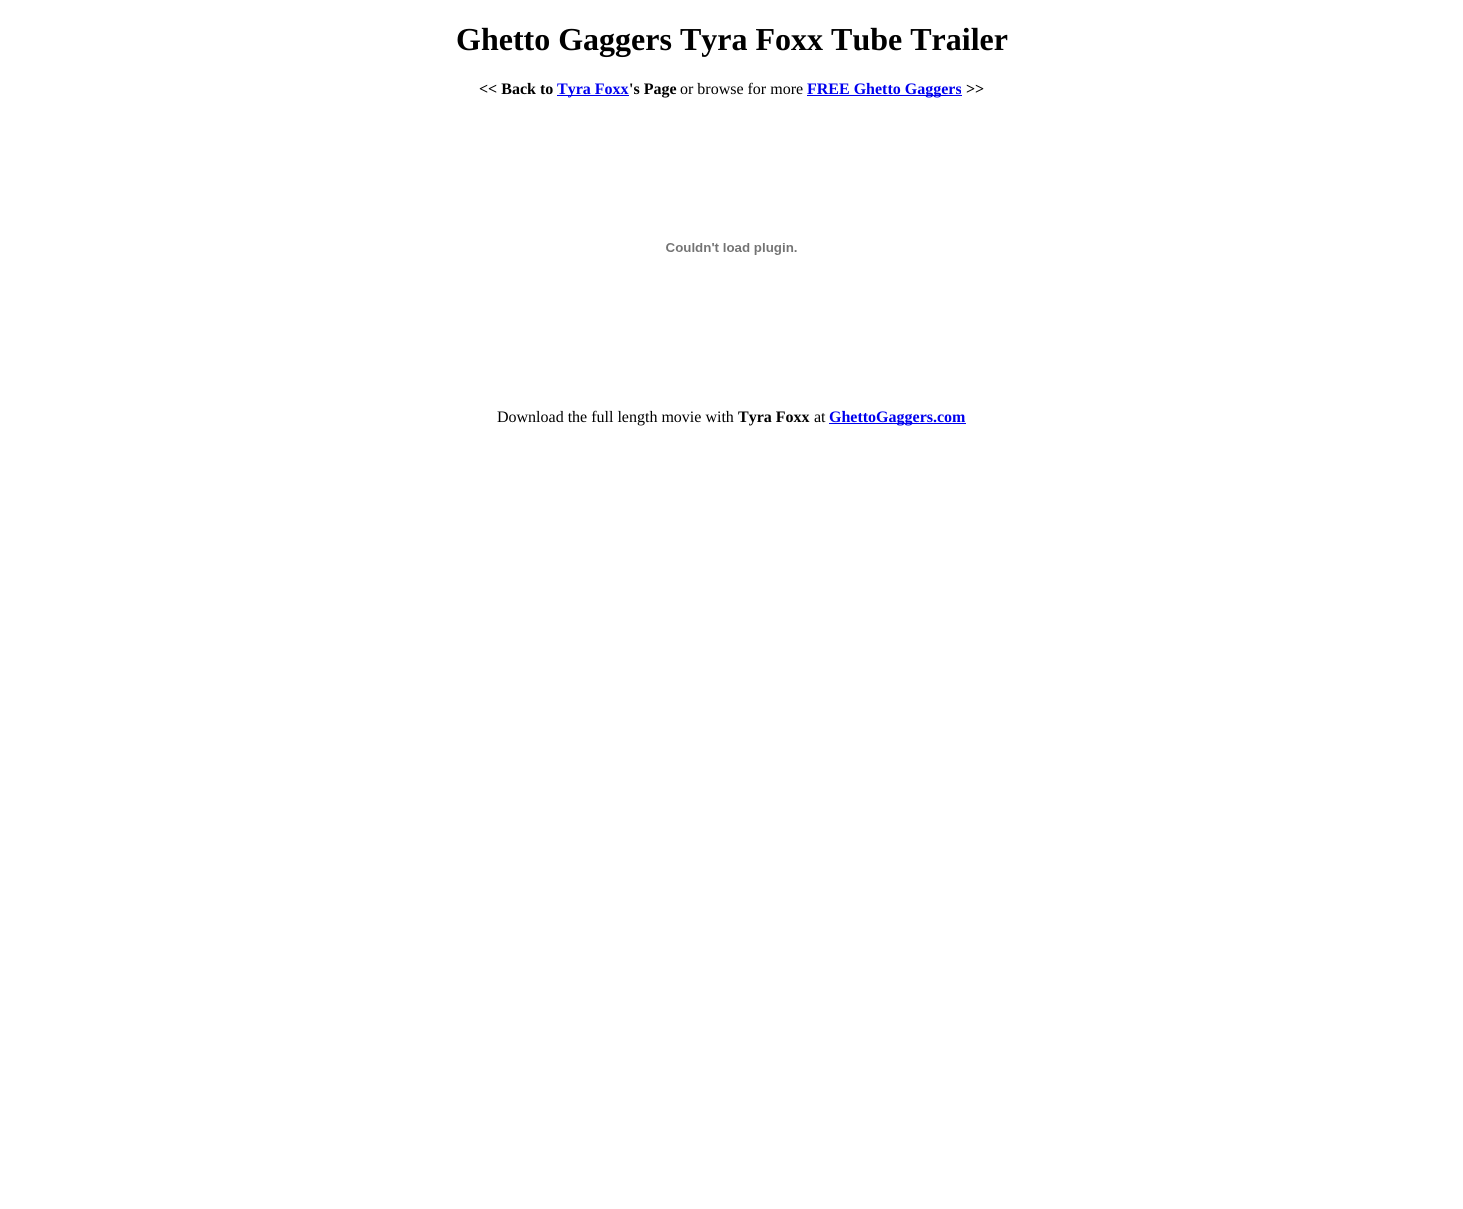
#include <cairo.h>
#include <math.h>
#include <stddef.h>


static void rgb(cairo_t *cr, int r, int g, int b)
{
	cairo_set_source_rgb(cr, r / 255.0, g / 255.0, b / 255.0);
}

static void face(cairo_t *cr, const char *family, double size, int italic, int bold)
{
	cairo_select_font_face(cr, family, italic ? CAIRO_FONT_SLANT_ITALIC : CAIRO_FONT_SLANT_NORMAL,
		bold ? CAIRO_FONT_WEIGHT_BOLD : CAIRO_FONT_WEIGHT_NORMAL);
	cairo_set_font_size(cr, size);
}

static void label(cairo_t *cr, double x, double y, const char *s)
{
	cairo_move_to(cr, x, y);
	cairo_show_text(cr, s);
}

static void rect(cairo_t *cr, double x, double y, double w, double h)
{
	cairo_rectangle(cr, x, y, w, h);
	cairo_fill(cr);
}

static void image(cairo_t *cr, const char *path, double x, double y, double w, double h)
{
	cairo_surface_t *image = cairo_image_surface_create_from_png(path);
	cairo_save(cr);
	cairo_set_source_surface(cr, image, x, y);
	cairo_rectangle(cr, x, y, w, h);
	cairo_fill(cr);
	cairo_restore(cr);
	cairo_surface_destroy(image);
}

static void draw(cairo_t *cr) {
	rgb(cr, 255, 255, 255);
	cairo_paint(cr);
	face(cr, "Liberation Serif", 32, 0, 1);
	rgb(cr, 0, 0, 0);
	label(cr, 456, 50, "Ghetto Gaggers Tyra Foxx Tube Trailer");
	face(cr, "Liberation Serif", 16, 0, 1);
	label(cr, 479, 94, "<< Back to");
	rgb(cr, 0, 0, 238);
	rect(cr, 557, 95, 72, 1);
	label(cr, 557, 94, "Tyra Foxx");
	rgb(cr, 0, 0, 0);
	label(cr, 629, 94, "'s Page");
	face(cr, "Liberation Serif", 16, 0, 0);
	label(cr, 680, 94, "or browse for more");
	rgb(cr, 0, 0, 238);
	rect(cr, 807, 95, 155, 1);
	face(cr, "Liberation Serif", 16, 0, 1);
	label(cr, 807, 94, "FREE Ghetto Gaggers");
	rgb(cr, 0, 0, 0);
	label(cr, 966, 94, ">>");
	image(cr, "image0.png", 666, 243, 131, 12);
	face(cr, "Liberation Serif", 16, 0, 0);
	label(cr, 497, 422, "Download the full length movie with");
	face(cr, "Liberation Serif", 16, 0, 1);
	label(cr, 738, 422, "Tyra Foxx");
	face(cr, "Liberation Serif", 16, 0, 0);
	label(cr, 814, 422, "at");
	rgb(cr, 0, 0, 238);
	rect(cr, 829, 423, 137, 1);
	face(cr, "Liberation Serif", 16, 0, 1);
	label(cr, 829, 422, "GhettoGaggers.com");
}

int main(void) {
	cairo_surface_t *surface = cairo_image_surface_create(CAIRO_FORMAT_RGB24, 1463, 1209);
	cairo_t *cr = cairo_create(surface);
	cairo_font_options_t *options = cairo_font_options_create();
	cairo_font_options_set_hint_metrics(options, CAIRO_HINT_METRICS_OFF);
	cairo_font_options_set_hint_style(options, CAIRO_HINT_STYLE_NONE);
	cairo_set_font_options(cr, options);
	cairo_set_miter_limit(cr, 4);
	draw(cr);
	cairo_surface_write_to_png(surface, "render.png");
	cairo_font_options_destroy(options);
	cairo_destroy(cr);
	cairo_surface_destroy(surface);
	return 0;
}
